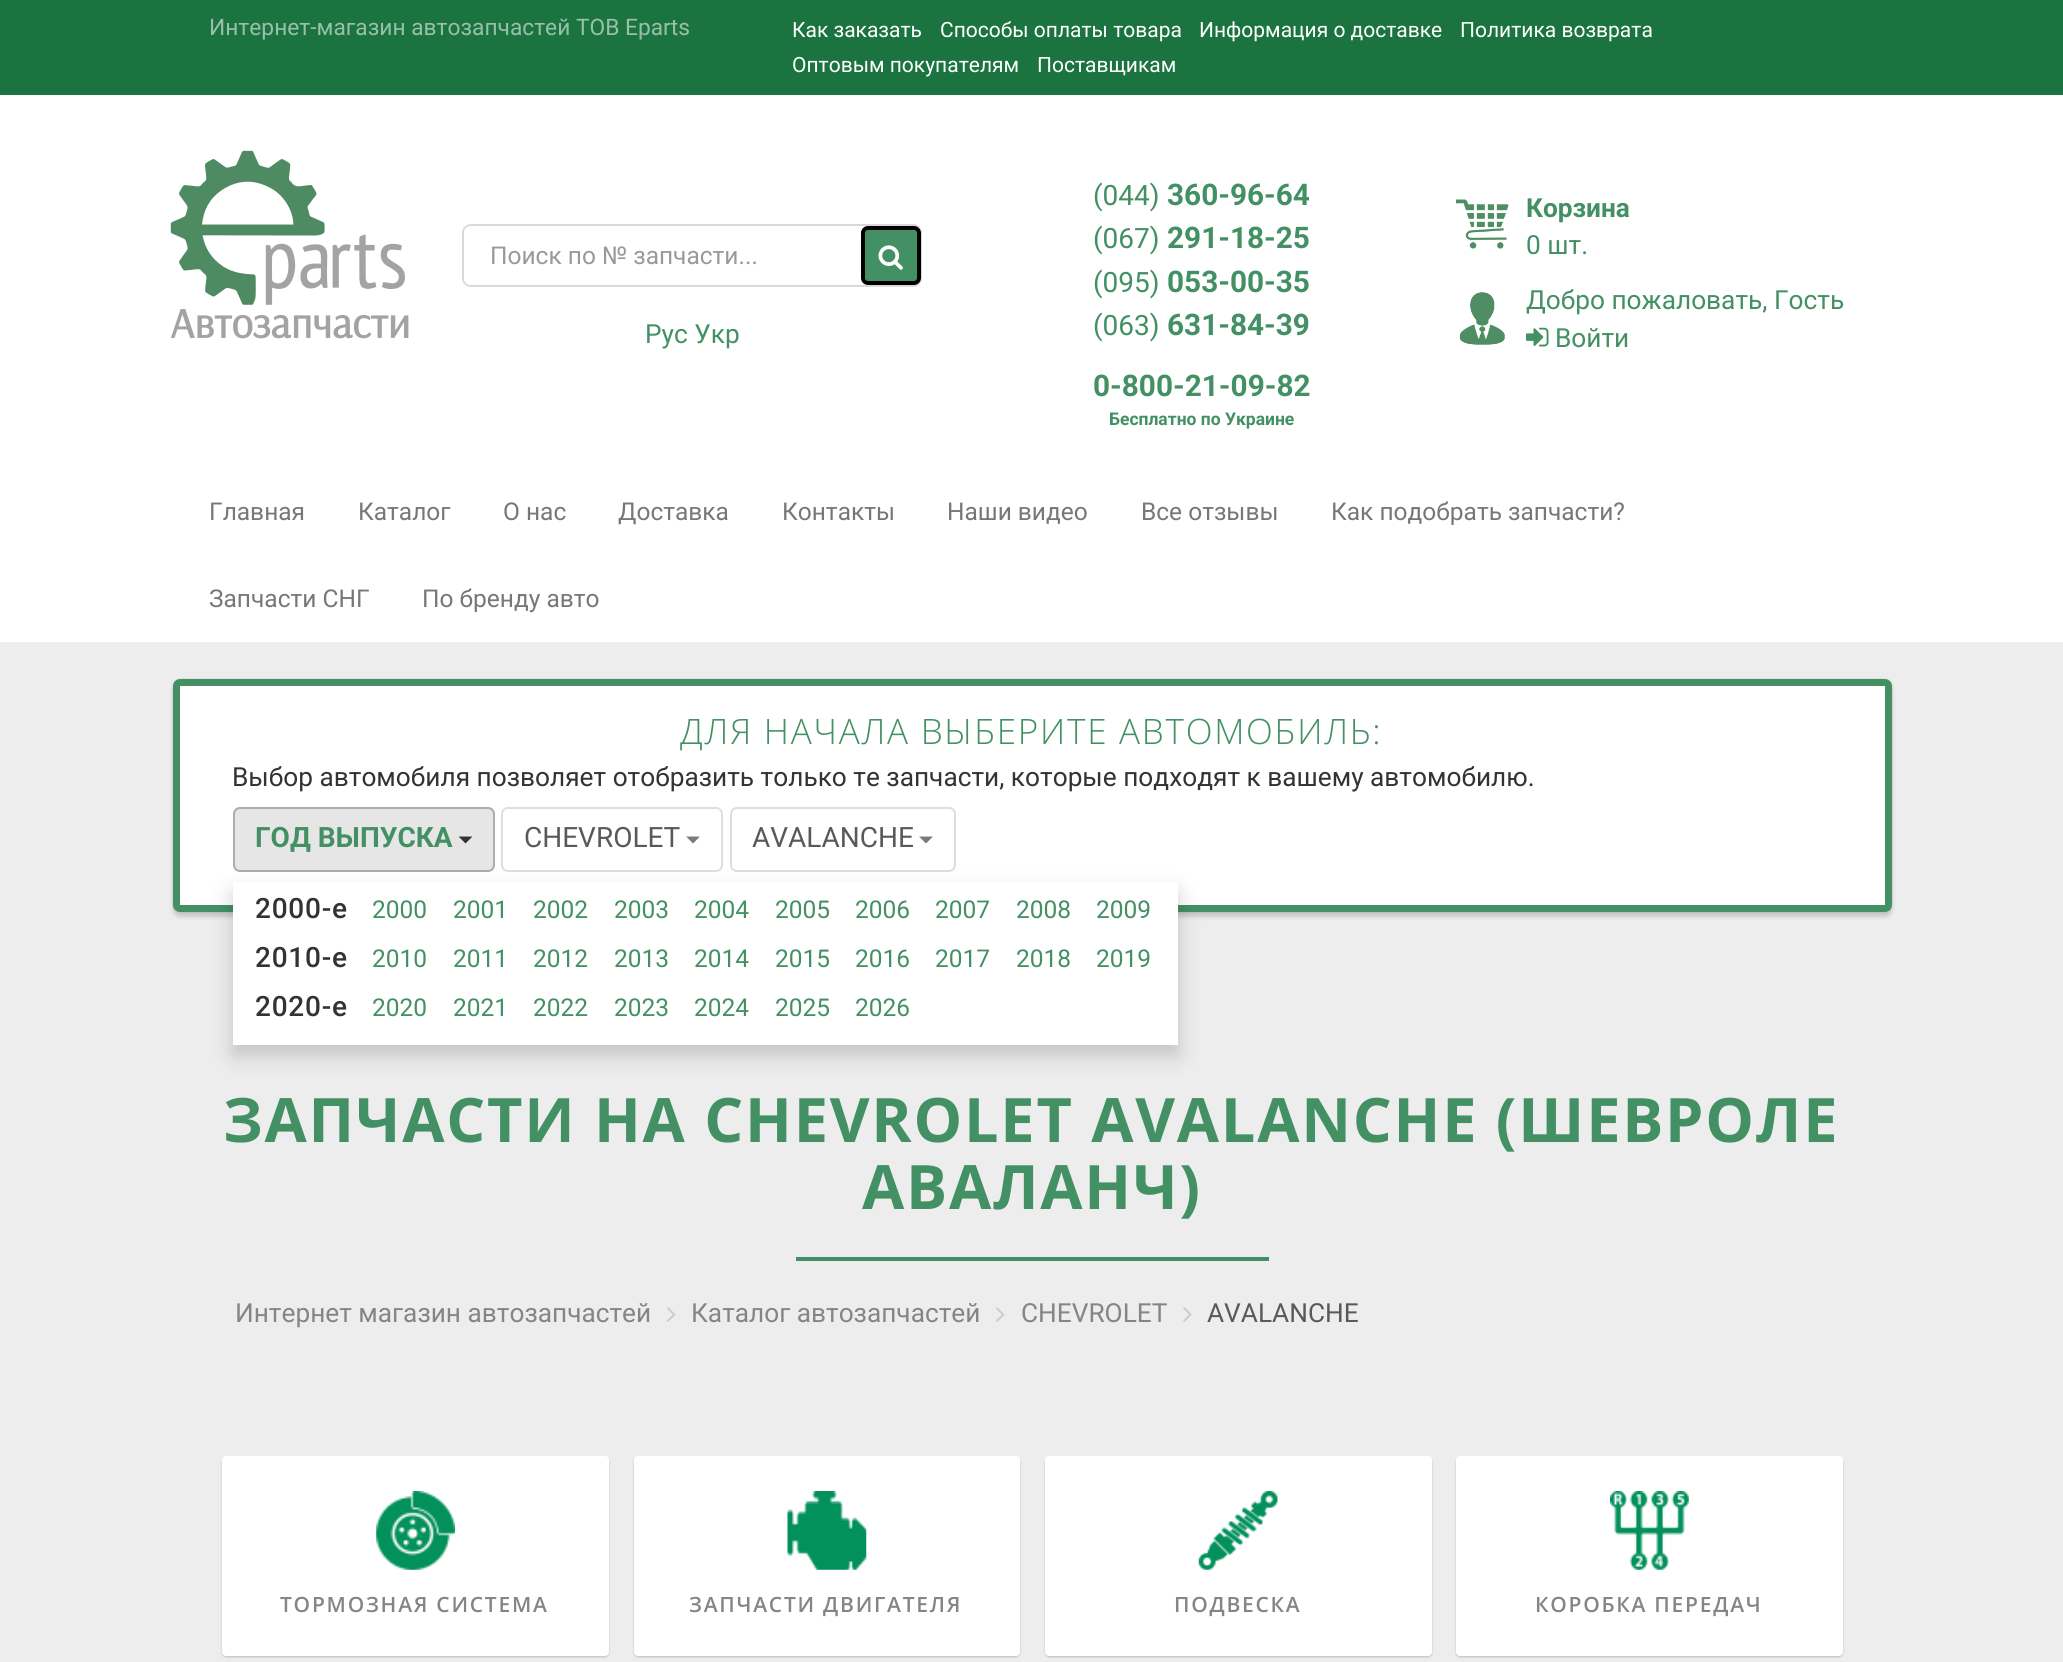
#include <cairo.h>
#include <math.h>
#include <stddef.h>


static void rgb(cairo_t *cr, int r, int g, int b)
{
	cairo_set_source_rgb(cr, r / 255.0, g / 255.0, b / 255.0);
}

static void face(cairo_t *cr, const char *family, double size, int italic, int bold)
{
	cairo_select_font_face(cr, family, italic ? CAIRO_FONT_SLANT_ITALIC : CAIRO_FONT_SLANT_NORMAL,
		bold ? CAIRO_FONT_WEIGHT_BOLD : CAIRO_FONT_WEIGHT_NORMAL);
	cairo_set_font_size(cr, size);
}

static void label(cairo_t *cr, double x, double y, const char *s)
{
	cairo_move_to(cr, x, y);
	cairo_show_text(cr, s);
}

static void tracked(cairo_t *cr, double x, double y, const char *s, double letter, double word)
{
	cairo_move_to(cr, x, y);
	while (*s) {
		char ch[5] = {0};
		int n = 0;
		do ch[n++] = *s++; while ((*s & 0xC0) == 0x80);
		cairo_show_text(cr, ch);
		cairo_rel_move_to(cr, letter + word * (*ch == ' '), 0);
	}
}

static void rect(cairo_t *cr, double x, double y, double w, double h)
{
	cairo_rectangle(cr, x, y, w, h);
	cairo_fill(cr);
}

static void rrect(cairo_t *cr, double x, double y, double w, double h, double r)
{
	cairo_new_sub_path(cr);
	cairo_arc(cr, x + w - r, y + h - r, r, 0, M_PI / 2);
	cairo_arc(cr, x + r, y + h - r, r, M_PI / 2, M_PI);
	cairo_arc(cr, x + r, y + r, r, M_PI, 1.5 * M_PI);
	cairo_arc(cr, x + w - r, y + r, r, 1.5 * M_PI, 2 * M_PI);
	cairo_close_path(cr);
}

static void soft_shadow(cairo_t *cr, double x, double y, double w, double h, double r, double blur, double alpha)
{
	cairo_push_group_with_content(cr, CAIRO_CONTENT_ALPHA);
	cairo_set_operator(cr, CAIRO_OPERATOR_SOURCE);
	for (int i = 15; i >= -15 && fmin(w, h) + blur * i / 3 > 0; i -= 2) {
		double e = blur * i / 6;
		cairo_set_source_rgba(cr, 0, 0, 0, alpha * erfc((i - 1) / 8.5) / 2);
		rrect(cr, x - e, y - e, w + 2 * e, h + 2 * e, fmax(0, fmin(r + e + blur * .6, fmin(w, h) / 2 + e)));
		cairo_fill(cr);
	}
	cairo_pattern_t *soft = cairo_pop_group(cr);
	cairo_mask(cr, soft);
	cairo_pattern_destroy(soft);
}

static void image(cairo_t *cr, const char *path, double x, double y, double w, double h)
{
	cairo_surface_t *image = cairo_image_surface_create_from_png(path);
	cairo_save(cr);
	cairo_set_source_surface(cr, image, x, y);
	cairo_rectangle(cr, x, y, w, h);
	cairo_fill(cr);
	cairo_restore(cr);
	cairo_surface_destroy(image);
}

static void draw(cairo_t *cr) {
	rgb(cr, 237, 237, 237);
	cairo_paint(cr);
	rgb(cr, 27, 115, 64);
	rect(cr, 0, 0, 2063, 95);
	face(cr, "Roboto", 22.75, 0, 0);
	rgb(cr, 152, 192, 169);
	label(cr, 209, 35, "Интернет-магазин автозапчастей ТОВ Eparts");
	face(cr, "Roboto", 21, 0, 0);
	rgb(cr, 255, 255, 255);
	label(cr, 792, 37, "Как заказать");
	label(cr, 940, 37, "Способы оплаты товара");
	label(cr, 1199, 37, "Информация о доставке");
	label(cr, 1460, 37, "Политика возврата");
	label(cr, 792, 72, "Оптовым покупателям");
	label(cr, 1037, 72, "Поставщикам");
	rect(cr, 0, 95, 2063, 355);
	image(cr, "image0.png", 170, 150, 239, 189);
	rrect(cr, 463, 225, 458, 61, 8);
	rgb(cr, 217, 217, 217);
	cairo_stroke(cr);
	rgb(cr, 255, 255, 255);
	rrect(cr, 464, 226, 457, 59, 7);
	cairo_fill(cr);
	face(cr, "Roboto", 24.5, 0, 0);
	rgb(cr, 153, 153, 153);
	label(cr, 490, 264, "Поиск по № запчасти...");
	rgb(cr, 66, 144, 99);
	rrect(cr, 863, 228, 56, 55, 5);
	cairo_fill_preserve(cr);
	rgb(cr, 0, 0, 0);
	cairo_set_line_width(cr, 4);
	cairo_stroke(cr);
	image(cr, "image1.png", 878, 245, 25, 25);
	face(cr, "Roboto", 26.25, 0, 0);
	rgb(cr, 66, 144, 99);
	label(cr, 645, 343, "Рус Укр");
	face(cr, "Roboto", 28, 0, 0);
	label(cr, 1093, 205, "(044)");
	face(cr, "Roboto", 29.75, 0, 1);
	label(cr, 1167, 205, "360-96-64");
	face(cr, "Roboto", 28, 0, 0);
	label(cr, 1093, 248, "(067)");
	face(cr, "Roboto", 29.75, 0, 1);
	label(cr, 1167, 248, "291-18-25");
	face(cr, "Roboto", 28, 0, 0);
	label(cr, 1093, 292, "(095)");
	face(cr, "Roboto", 29.75, 0, 1);
	label(cr, 1167, 292, "053-00-35");
	face(cr, "Roboto", 28, 0, 0);
	label(cr, 1093, 335, "(063)");
	face(cr, "Roboto", 29.75, 0, 1);
	label(cr, 1167, 335, "631-84-39");
	label(cr, 1093, 396, "0-800-21-09-82");
	face(cr, "Roboto", 17.5, 0, 1);
	label(cr, 1109, 425, "Бесплатно по Украине");
	image(cr, "image2.png", 1456, 199, 53, 50);
	face(cr, "Roboto", 26.25, 0, 1);
	label(cr, 1526, 217, "Корзина");
	face(cr, "Roboto", 26.25, 0, 0);
	label(cr, 1526, 254, "0 шт.");
	image(cr, "image3.png", 1459, 292, 46, 53);
	label(cr, 1526, 309, "Добро пожаловать, Гость");
	image(cr, "image4.png", 1526, 327, 23, 20);
	label(cr, 1555, 347, "Войти");
	rgb(cr, 255, 255, 255);
	rect(cr, 0, 450, 2063, 192);
	face(cr, "Roboto", 24.5, 0, 0);
	rgb(cr, 119, 119, 119);
	label(cr, 209, 520, "Главная");
	label(cr, 358, 520, "Каталог");
	label(cr, 503, 520, "О нас");
	label(cr, 618, 520, "Доставка");
	label(cr, 782, 520, "Контакты");
	label(cr, 947, 520, "Наши видео");
	label(cr, 1141, 520, "Все отзывы");
	label(cr, 1331, 520, "Как подобрать запчасти?");
	label(cr, 209, 607, "Запчасти СНГ");
	label(cr, 422, 607, "По бренду авто");
	rgb(cr, 0, 0, 0);
	soft_shadow(cr, 173, 679, 1719, 233, 7, 1, 0.15);
	soft_shadow(cr, 173, 684, 1719, 233, 7, 2, 0.15);
	rgb(cr, 255, 255, 255);
	rrect(cr, 176.5, 682.5, 1712, 226, 3.5);
	cairo_fill_preserve(cr);
	rgb(cr, 66, 144, 99);
	cairo_set_line_width(cr, 7);
	cairo_stroke(cr);
	face(cr, "Open Sans Light", 35, 0, 0);
	tracked(cr, 680, 744, "ДЛЯ НАЧАЛА ВЫБЕРИТЕ АВТОМОБИЛЬ:", 1.75, 0);
	face(cr, "Roboto", 26.25, 0, 0);
	rgb(cr, 51, 51, 51);
	label(cr, 232, 786, "Выбор автомобиля позволяет отобразить только те запчасти, которые подходят к вашему автомобилю.");
	rgb(cr, 230, 230, 230);
	rrect(cr, 234, 808, 260, 63, 6);
	cairo_fill_preserve(cr);
	rgb(cr, 173, 173, 173);
	cairo_set_line_width(cr, 2);
	cairo_stroke(cr);
	face(cr, "Roboto", 28, 0, 1);
	rgb(cr, 66, 144, 99);
	label(cr, 255, 847, "ГОД ВЫПУСКА");
	rgb(cr, 51, 51, 51);
	cairo_new_path(cr);
	cairo_move_to(cr, 458.5, 836.5);
	cairo_line_to(cr, 472.5, 836.5);
	cairo_line_to(cr, 465.5, 843.5);
	cairo_close_path(cr);
	cairo_fill(cr);
	rrect(cr, 502, 808, 220, 63, 6);
	rgb(cr, 222, 222, 222);
	cairo_stroke(cr);
	rrect(cr, 731, 808, 224, 63, 6);
	cairo_stroke(cr);
	rgb(cr, 0, 0, 0);
	soft_shadow(cr, 233, 893, 945, 162, 0, 10.5, 0.18);
	rgb(cr, 255, 255, 255);
	rect(cr, 233, 882, 945, 163);
	face(cr, "Roboto Medium", 28, 0, 0);
	rgb(cr, 51, 51, 51);
	tracked(cr, 255, 918, "2000-е", 0.75, 0);
	face(cr, "Roboto", 24.5, 0, 0);
	rgb(cr, 66, 144, 99);
	label(cr, 372, 918, "2000");
	label(cr, 453, 918, "2001");
	label(cr, 533, 918, "2002");
	label(cr, 614, 918, "2003");
	label(cr, 694, 918, "2004");
	label(cr, 775, 918, "2005");
	label(cr, 855, 918, "2006");
	label(cr, 935, 918, "2007");
	label(cr, 1016, 918, "2008");
	label(cr, 1096, 918, "2009");
	face(cr, "Roboto Medium", 28, 0, 0);
	rgb(cr, 51, 51, 51);
	tracked(cr, 255, 967, "2010-е", 0.75, 0);
	face(cr, "Roboto", 24.5, 0, 0);
	rgb(cr, 66, 144, 99);
	label(cr, 372, 967, "2010");
	label(cr, 453, 967, "2011");
	label(cr, 533, 967, "2012");
	label(cr, 614, 967, "2013");
	label(cr, 694, 967, "2014");
	label(cr, 775, 967, "2015");
	label(cr, 855, 967, "2016");
	label(cr, 935, 967, "2017");
	label(cr, 1016, 967, "2018");
	label(cr, 1096, 967, "2019");
	face(cr, "Roboto Medium", 28, 0, 0);
	rgb(cr, 51, 51, 51);
	tracked(cr, 255, 1016, "2020-е", 0.75, 0);
	face(cr, "Roboto", 24.5, 0, 0);
	rgb(cr, 66, 144, 99);
	label(cr, 372, 1016, "2020");
	label(cr, 453, 1016, "2021");
	label(cr, 533, 1016, "2022");
	label(cr, 614, 1016, "2023");
	label(cr, 694, 1016, "2024");
	label(cr, 775, 1016, "2025");
	label(cr, 855, 1016, "2026");
	face(cr, "Roboto", 28, 0, 0);
	rgb(cr, 89, 89, 89);
	label(cr, 524, 847, "CHEVROLET");
	rgb(cr, 122, 122, 122);
	cairo_new_path(cr);
	cairo_move_to(cr, 686, 836.5);
	cairo_line_to(cr, 700, 836.5);
	cairo_line_to(cr, 693, 843.5);
	cairo_close_path(cr);
	cairo_fill(cr);
	rgb(cr, 89, 89, 89);
	label(cr, 752, 847, "AVALANCHE");
	rgb(cr, 122, 122, 122);
	cairo_new_path(cr);
	cairo_move_to(cr, 919, 836.5);
	cairo_line_to(cr, 933, 836.5);
	cairo_line_to(cr, 926, 843.5);
	cairo_close_path(cr);
	cairo_fill(cr);
	face(cr, "Open Sans", 61.25, 0, 1);
	rgb(cr, 66, 144, 99);
	tracked(cr, 223, 1142, "ЗАПЧАСТИ НА CHEVROLET AVALANCHE (ШЕВРОЛЕ", 1.75, 0);
	tracked(cr, 862, 1209, "АВАЛАНЧ)", 1.75, 0);
	rgb(cr, 66, 143, 99);
	rect(cr, 796, 1257, 473, 4);
	face(cr, "Roboto", 26.25, 0, 0);
	rgb(cr, 133, 133, 133);
	label(cr, 235, 1322, "Интернет магазин автозапчастей");
	image(cr, "image5.png", 667, 1307, 9, 15);
	label(cr, 691, 1322, "Каталог автозапчастей");
	image(cr, "image5.png", 996, 1307, 9, 15);
	label(cr, 1021, 1322, "CHEVROLET");
	image(cr, "image6.png", 1183, 1307, 9, 15);
	rgb(cr, 89, 89, 89);
	label(cr, 1207, 1322, "AVALANCHE");
	rgb(cr, 0, 0, 0);
	soft_shadow(cr, 222, 1458, 387, 199, 4, 1, 0.2);
	rgb(cr, 255, 255, 255);
	rrect(cr, 222, 1456, 387, 200, 4);
	cairo_fill(cr);
	image(cr, "image7.png", 376, 1491, 79, 79);
	face(cr, "Open Sans SemiBold", 21, 0, 0);
	rgb(cr, 133, 133, 133);
	tracked(cr, 280, 1612, "ТОРМОЗНАЯ СИСТЕМА", 1.75, 0);
	rgb(cr, 0, 0, 0);
	soft_shadow(cr, 634, 1458, 386, 199, 4, 1, 0.2);
	rgb(cr, 255, 255, 255);
	rrect(cr, 634, 1456, 386, 200, 4);
	cairo_fill(cr);
	image(cr, "image8.png", 787, 1491, 80, 79);
	rgb(cr, 133, 133, 133);
	tracked(cr, 689, 1612, "ЗАПЧАСТИ ДВИГАТЕЛЯ", 1.75, 0);
	rgb(cr, 0, 0, 0);
	soft_shadow(cr, 1045, 1458, 387, 199, 4, 1, 0.2);
	rgb(cr, 255, 255, 255);
	rrect(cr, 1045, 1456, 387, 200, 4);
	cairo_fill(cr);
	image(cr, "image9.png", 1198, 1491, 80, 79);
	rgb(cr, 133, 133, 133);
	tracked(cr, 1174, 1612, "ПОДВЕСКА", 1.75, 0);
	rgb(cr, 0, 0, 0);
	soft_shadow(cr, 1456, 1458, 387, 199, 4, 1, 0.2);
	rgb(cr, 255, 255, 255);
	rrect(cr, 1456, 1456, 387, 200, 4);
	cairo_fill(cr);
	image(cr, "image10.png", 1610, 1491, 79, 79);
	rgb(cr, 133, 133, 133);
	tracked(cr, 1535, 1612, "КОРОБКА ПЕРЕДАЧ", 1.75, 0);
}

int main(void) {
	cairo_surface_t *surface = cairo_image_surface_create(CAIRO_FORMAT_RGB24, 2063, 1662);
	cairo_t *cr = cairo_create(surface);
	cairo_font_options_t *options = cairo_font_options_create();
	cairo_font_options_set_hint_metrics(options, CAIRO_HINT_METRICS_OFF);
	cairo_font_options_set_hint_style(options, CAIRO_HINT_STYLE_NONE);
	cairo_set_font_options(cr, options);
	cairo_set_miter_limit(cr, 4);
	draw(cr);
	cairo_surface_write_to_png(surface, "render.png");
	cairo_font_options_destroy(options);
	cairo_destroy(cr);
	cairo_surface_destroy(surface);
	return 0;
}
